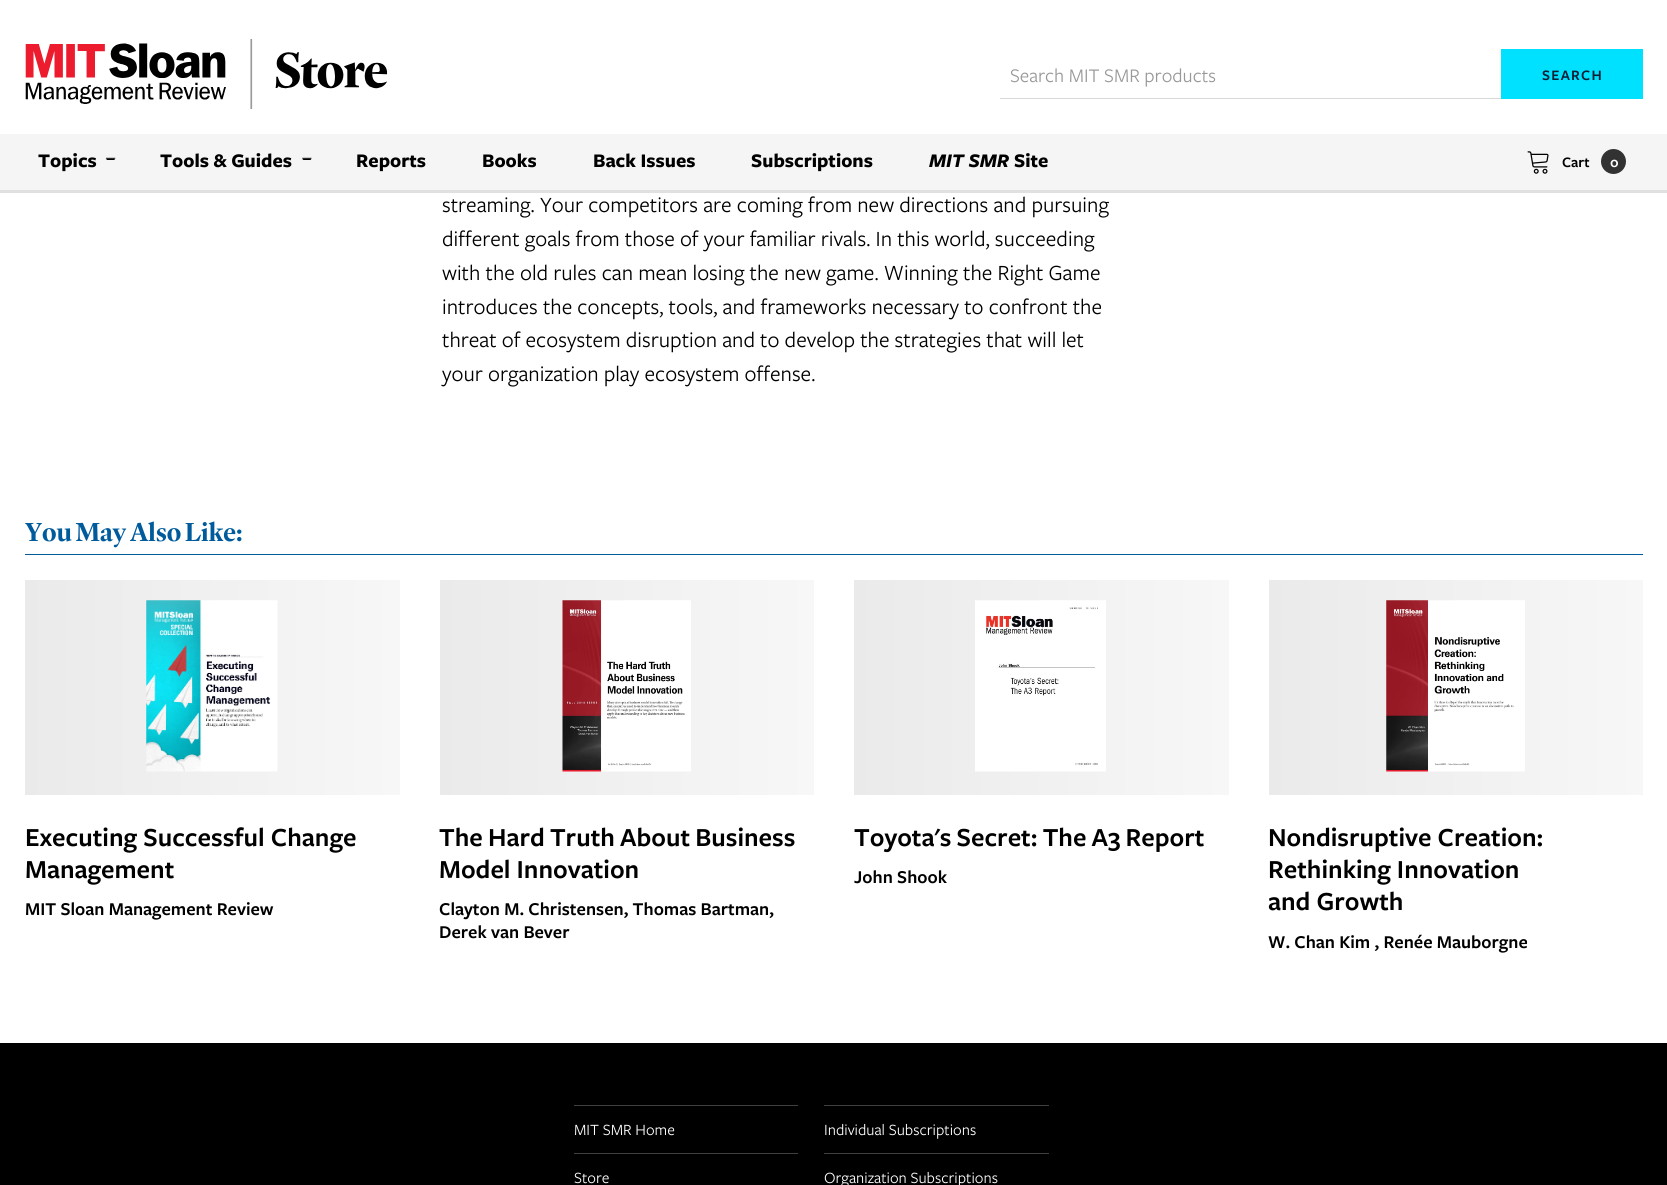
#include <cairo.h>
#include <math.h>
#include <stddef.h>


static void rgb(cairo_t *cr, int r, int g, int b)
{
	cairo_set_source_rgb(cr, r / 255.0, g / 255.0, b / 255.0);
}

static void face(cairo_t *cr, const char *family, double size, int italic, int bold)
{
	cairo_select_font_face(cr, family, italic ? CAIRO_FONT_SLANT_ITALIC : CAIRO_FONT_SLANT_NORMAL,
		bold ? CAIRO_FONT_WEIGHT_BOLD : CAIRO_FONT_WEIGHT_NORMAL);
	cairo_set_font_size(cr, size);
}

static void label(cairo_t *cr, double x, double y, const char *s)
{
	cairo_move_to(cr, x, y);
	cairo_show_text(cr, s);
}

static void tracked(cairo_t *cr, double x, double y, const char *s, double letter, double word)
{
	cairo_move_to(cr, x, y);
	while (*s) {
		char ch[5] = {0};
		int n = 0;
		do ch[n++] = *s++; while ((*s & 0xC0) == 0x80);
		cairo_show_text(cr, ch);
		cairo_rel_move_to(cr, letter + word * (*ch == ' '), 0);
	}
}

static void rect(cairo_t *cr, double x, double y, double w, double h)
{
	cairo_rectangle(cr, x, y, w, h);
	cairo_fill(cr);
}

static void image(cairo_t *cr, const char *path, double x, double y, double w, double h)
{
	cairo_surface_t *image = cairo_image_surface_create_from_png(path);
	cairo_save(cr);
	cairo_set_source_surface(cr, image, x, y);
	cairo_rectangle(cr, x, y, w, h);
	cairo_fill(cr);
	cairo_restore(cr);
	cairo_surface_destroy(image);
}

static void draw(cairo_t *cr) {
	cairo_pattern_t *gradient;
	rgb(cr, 255, 255, 255);
	cairo_paint(cr);
	rgb(cr, 224, 224, 224);
	rect(cr, 0, 190, 1667, 3);
	image(cr, "image0.png", 25, 39, 363, 70);
	rgb(cr, 216, 216, 216);
	rect(cr, 1000, 98, 501, 1);
	face(cr, "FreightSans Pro", 20, 0, 0);
	rgb(cr, 153, 153, 153);
	label(cr, 1010, 82, "Search MIT SMR products");
	rgb(cr, 0, 224, 255);
	rect(cr, 1501, 49, 142, 50);
	face(cr, "FreightSans Pro SemiBold", 15, 0, 0);
	rgb(cr, 8, 31, 52);
	tracked(cr, 1542, 80, "SEARCH", 1.25, 0);
	rgb(cr, 245, 245, 245);
	rect(cr, 0, 134, 1667, 56);
	face(cr, "FreightSans Pro", 20, 0, 1);
	rgb(cr, 0, 0, 0);
	label(cr, 38, 167, "Topics");
	image(cr, "image1.png", 105, 157, 11, 3);
	label(cr, 160, 167, "Tools & Guides");
	image(cr, "image2.png", 302, 157, 10, 3);
	label(cr, 356, 167, "Reports");
	label(cr, 482, 167, "Books");
	label(cr, 593, 167, "Back Issues");
	label(cr, 751, 167, "Subscriptions");
	face(cr, "FreightSans Pro", 20, 1, 1);
	label(cr, 929, 167, "MIT SMR");
	face(cr, "FreightSans Pro", 20, 0, 1);
	label(cr, 1014, 167, "Site");
	image(cr, "image3.png", 1527, 151, 22, 23);
	face(cr, "FreightSans Pro SemiBold", 15, 0, 0);
	label(cr, 1562, 167, "Cart");
	rgb(cr, 50, 50, 50);
	cairo_new_path(cr);
	cairo_arc(cr, 1613.5, 161.5, 12.5, 0, 2 * M_PI);
	cairo_fill(cr);
	rgb(cr, 255, 255, 255);
	label(cr, 1610, 167, "0");
	face(cr, "FreightSans Pro", 22.5, 0, 0);
	rgb(cr, 0, 0, 0);
	label(cr, 442, 212, "streaming. Your competitors are coming from new directions and pursuing");
	label(cr, 442, 246, "different goals from those of your familiar rivals. In this world, succeeding");
	label(cr, 442, 280, "with the old rules can mean losing the new game. Winning the Right Game");
	label(cr, 442, 314, "introduces the concepts, tools, and frameworks necessary to confront the");
	label(cr, 442, 347, "threat of ecosystem disruption and to develop the strategies that will let");
	label(cr, 442, 381, "your organization play ecosystem offense.");
	rgb(cr, 0, 91, 156);
	rect(cr, 25, 554, 1618, 1);
	face(cr, "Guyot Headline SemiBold", 26.25, 0, 0);
	tracked(cr, 25, 541, "You May Also Like:", 0, -1);
	gradient = cairo_pattern_create_linear(400, 688, 25, 688);
	cairo_pattern_add_color_stop_rgba(gradient, 0, 0.969, 0.969, 0.969, 1);
	cairo_pattern_add_color_stop_rgba(gradient, 1, 0.918, 0.918, 0.918, 1);
	cairo_set_source(cr, gradient);
	cairo_pattern_destroy(gradient);
	rect(cr, 25, 580, 375, 215);
	image(cr, "image4.png", 146, 600, 132, 172);
	face(cr, "FreightSans Pro SemiBold", 27, 0, 0);
	rgb(cr, 0, 0, 0);
	label(cr, 25, 846, "Executing Successful Change");
	label(cr, 25, 878, "Management");
	face(cr, "FreightSans Pro SemiBold", 18.75, 0, 0);
	label(cr, 25, 915, "MIT Sloan Management Review");
	gradient = cairo_pattern_create_linear(814, 688, 440, 688);
	cairo_pattern_add_color_stop_rgba(gradient, 0, 0.969, 0.969, 0.969, 1);
	cairo_pattern_add_color_stop_rgba(gradient, 1, 0.918, 0.918, 0.918, 1);
	cairo_set_source(cr, gradient);
	cairo_pattern_destroy(gradient);
	rect(cr, 440, 580, 374, 215);
	image(cr, "image5.png", 562, 600, 129, 172);
	face(cr, "FreightSans Pro SemiBold", 27, 0, 0);
	rgb(cr, 0, 0, 0);
	tracked(cr, 439, 846, "The Hard Truth About Business", 0, -1);
	label(cr, 439, 878, "Model Innovation");
	face(cr, "FreightSans Pro SemiBold", 18.75, 0, 0);
	label(cr, 439, 915, "Clayton M. Christensen, Thomas Bartman,");
	label(cr, 439, 938, "Derek van Bever");
	gradient = cairo_pattern_create_linear(1229, 688, 854, 688);
	cairo_pattern_add_color_stop_rgba(gradient, 0, 0.969, 0.969, 0.969, 1);
	cairo_pattern_add_color_stop_rgba(gradient, 1, 0.918, 0.918, 0.918, 1);
	cairo_set_source(cr, gradient);
	cairo_pattern_destroy(gradient);
	rect(cr, 854, 580, 375, 215);
	image(cr, "image6.png", 975, 600, 131, 172);
	face(cr, "FreightSans Pro SemiBold", 27, 0, 0);
	rgb(cr, 0, 0, 0);
	tracked(cr, 854, 846, "Toyota's Secret: The A3 Report", 0, -1);
	face(cr, "FreightSans Pro SemiBold", 18.75, 0, 0);
	label(cr, 854, 883, "John Shook");
	gradient = cairo_pattern_create_linear(1643, 688, 1269, 688);
	cairo_pattern_add_color_stop_rgba(gradient, 0, 0.969, 0.969, 0.969, 1);
	cairo_pattern_add_color_stop_rgba(gradient, 1, 0.918, 0.918, 0.918, 1);
	cairo_set_source(cr, gradient);
	cairo_pattern_destroy(gradient);
	rect(cr, 1269, 580, 374, 215);
	image(cr, "image7.png", 1386, 600, 139, 172);
	face(cr, "FreightSans Pro SemiBold", 27, 0, 0);
	rgb(cr, 0, 0, 0);
	label(cr, 1268, 846, "Nondisruptive Creation:");
	label(cr, 1268, 878, "Rethinking Innovation");
	label(cr, 1268, 910, "and Growth");
	face(cr, "FreightSans Pro SemiBold", 18.75, 0, 0);
	label(cr, 1268, 948, "W. Chan Kim , Renée Mauborgne");
	rect(cr, 0, 1043, 1667, 142);
	rgb(cr, 64, 64, 64);
	rect(cr, 574, 1105, 224, 1);
	face(cr, "FreightSans Pro", 16.25, 0, 0);
	rgb(cr, 255, 255, 255);
	label(cr, 574, 1135, "MIT SMR Home");
	rgb(cr, 64, 64, 64);
	rect(cr, 824, 1105, 225, 1);
	rgb(cr, 255, 255, 255);
	label(cr, 824, 1135, "Individual Subscriptions");
	rgb(cr, 64, 64, 64);
	rect(cr, 574, 1153, 224, 1);
	rgb(cr, 255, 255, 255);
	label(cr, 574, 1183, "Store");
	rgb(cr, 64, 64, 64);
	rect(cr, 824, 1153, 225, 1);
	rgb(cr, 255, 255, 255);
	label(cr, 824, 1183, "Organization Subscriptions");
}

int main(void) {
	cairo_surface_t *surface = cairo_image_surface_create(CAIRO_FORMAT_RGB24, 1667, 1185);
	cairo_t *cr = cairo_create(surface);
	cairo_font_options_t *options = cairo_font_options_create();
	cairo_font_options_set_hint_metrics(options, CAIRO_HINT_METRICS_OFF);
	cairo_font_options_set_hint_style(options, CAIRO_HINT_STYLE_NONE);
	cairo_set_font_options(cr, options);
	cairo_set_miter_limit(cr, 4);
	draw(cr);
	cairo_surface_write_to_png(surface, "render.png");
	cairo_font_options_destroy(options);
	cairo_destroy(cr);
	cairo_surface_destroy(surface);
	return 0;
}
